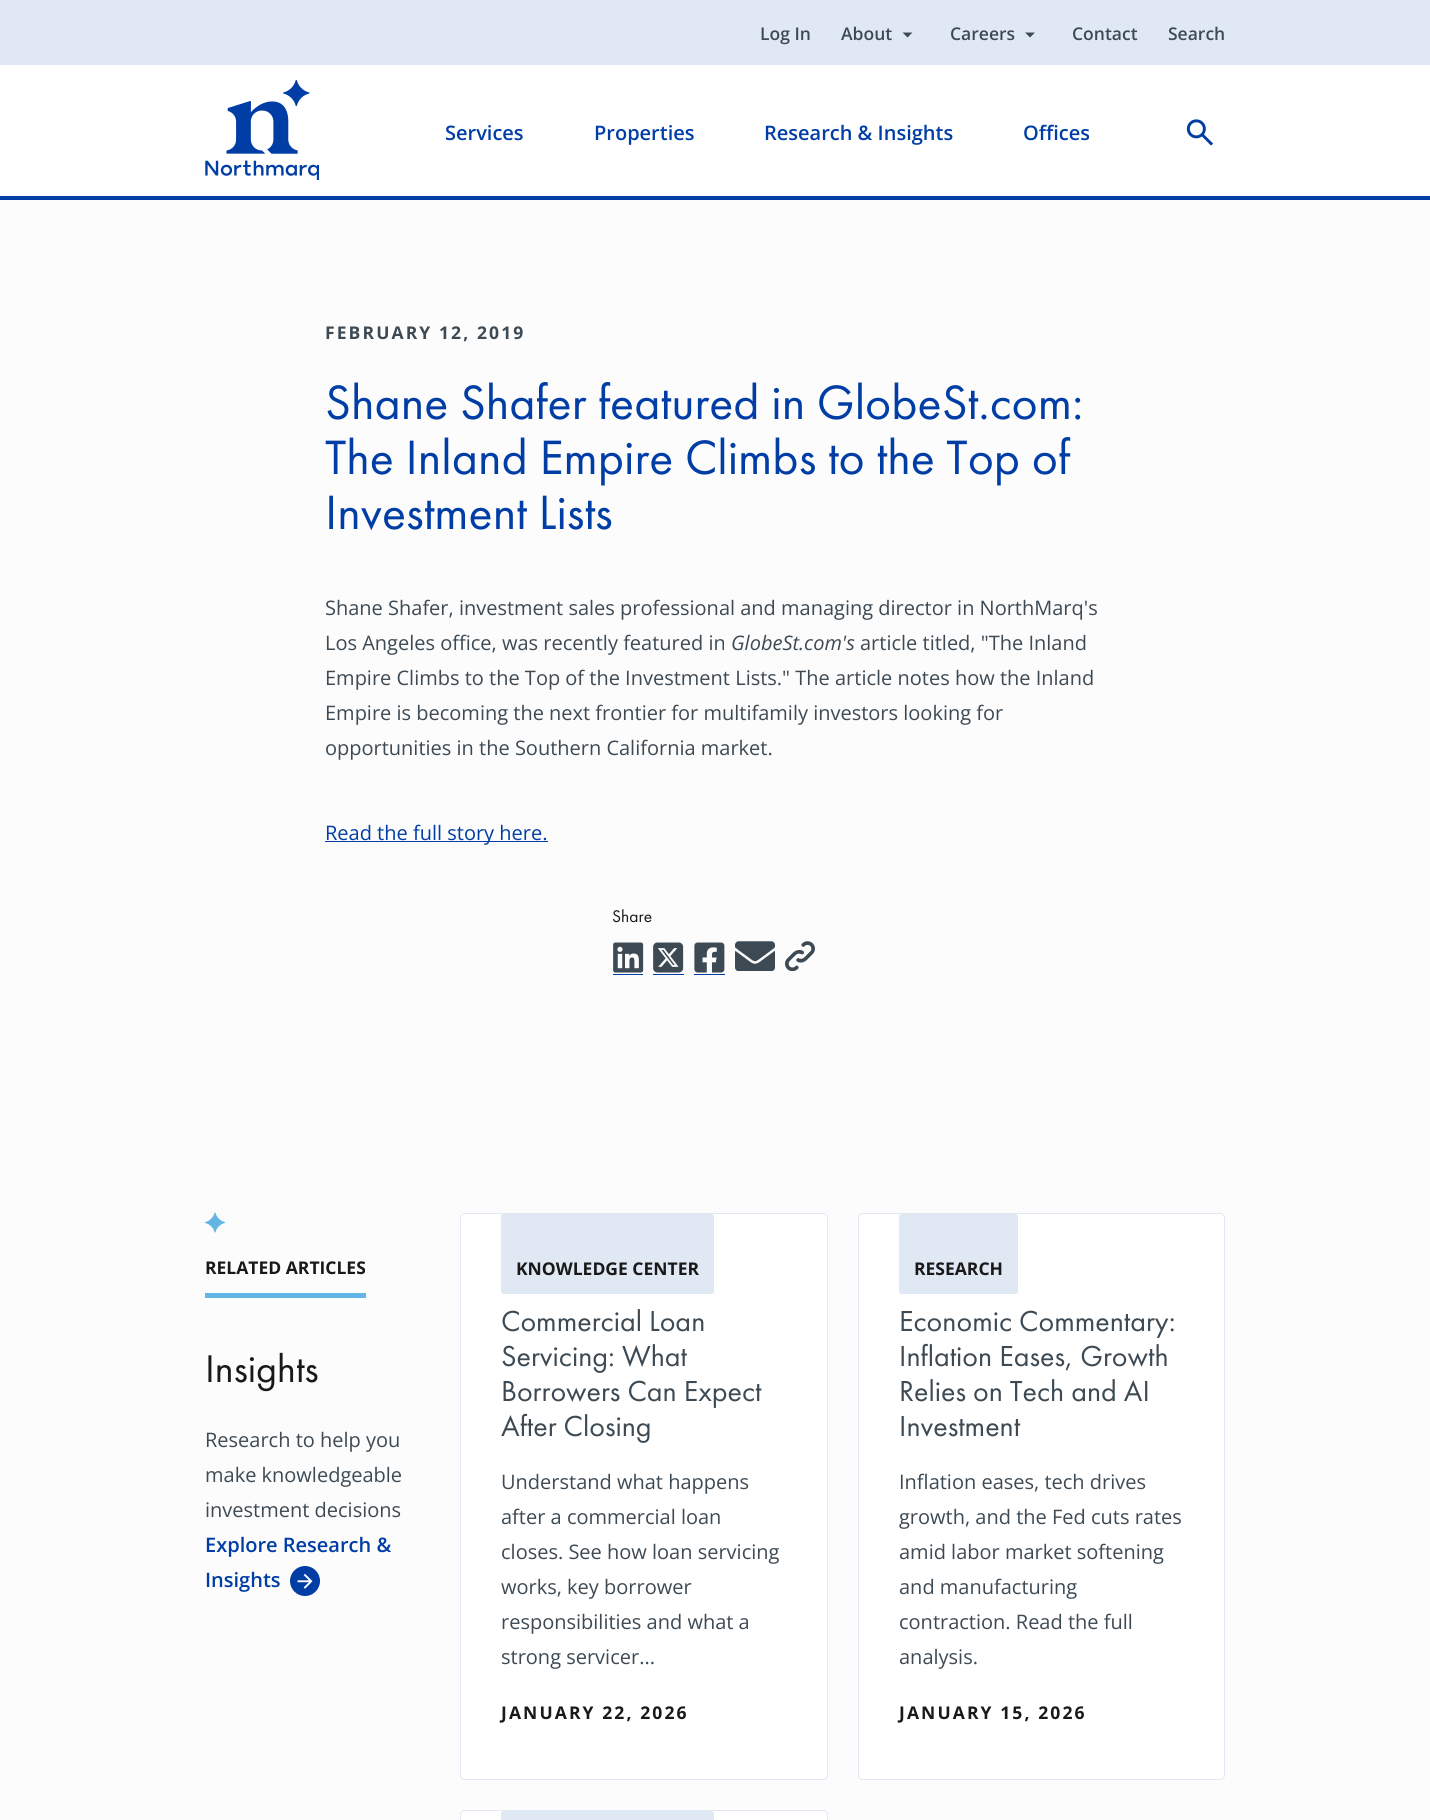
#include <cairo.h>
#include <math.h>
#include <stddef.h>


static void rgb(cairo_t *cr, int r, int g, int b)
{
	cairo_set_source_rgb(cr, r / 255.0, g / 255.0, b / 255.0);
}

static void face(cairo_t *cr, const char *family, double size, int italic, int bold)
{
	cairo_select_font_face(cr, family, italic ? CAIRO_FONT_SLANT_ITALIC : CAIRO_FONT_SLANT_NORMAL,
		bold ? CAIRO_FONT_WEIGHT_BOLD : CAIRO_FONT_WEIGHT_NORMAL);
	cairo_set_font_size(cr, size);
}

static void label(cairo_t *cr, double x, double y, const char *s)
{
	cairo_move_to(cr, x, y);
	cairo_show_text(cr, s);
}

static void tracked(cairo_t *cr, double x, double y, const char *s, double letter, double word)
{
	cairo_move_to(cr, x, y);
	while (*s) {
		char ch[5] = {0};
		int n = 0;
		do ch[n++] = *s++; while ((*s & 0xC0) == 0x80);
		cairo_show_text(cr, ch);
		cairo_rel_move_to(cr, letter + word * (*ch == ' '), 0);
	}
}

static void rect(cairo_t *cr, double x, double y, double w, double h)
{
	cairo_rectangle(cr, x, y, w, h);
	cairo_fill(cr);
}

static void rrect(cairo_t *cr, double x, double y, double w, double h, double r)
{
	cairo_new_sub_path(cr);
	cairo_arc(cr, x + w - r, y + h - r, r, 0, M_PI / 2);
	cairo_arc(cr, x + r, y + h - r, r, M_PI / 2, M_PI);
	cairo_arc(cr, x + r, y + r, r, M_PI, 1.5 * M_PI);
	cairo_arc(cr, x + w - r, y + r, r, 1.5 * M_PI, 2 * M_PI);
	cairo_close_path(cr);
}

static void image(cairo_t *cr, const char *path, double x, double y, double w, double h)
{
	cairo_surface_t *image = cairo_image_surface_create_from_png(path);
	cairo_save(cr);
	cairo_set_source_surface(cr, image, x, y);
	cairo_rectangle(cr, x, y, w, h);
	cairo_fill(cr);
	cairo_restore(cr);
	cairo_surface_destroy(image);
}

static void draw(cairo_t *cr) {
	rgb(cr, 252, 252, 252);
	cairo_paint(cr);
	rgb(cr, 224, 232, 244);
	rect(cr, 0, 0, 1430, 65);
	face(cr, "Open Sans SemiBold", 17.5, 0, 0);
	rgb(cr, 61, 74, 84);
	label(cr, 760, 40, "Log In");
	label(cr, 841, 40, "About");
	cairo_new_path(cr);
	cairo_move_to(cr, 907.5, 37.5);
	cairo_line_to(cr, 902.5, 32.5);
	cairo_line_to(cr, 912.5, 32.5);
	cairo_close_path(cr);
	cairo_fill(cr);
	label(cr, 950, 40, "Careers");
	cairo_new_path(cr);
	cairo_move_to(cr, 1030, 37.5);
	cairo_line_to(cr, 1025, 32.5);
	cairo_line_to(cr, 1035, 32.5);
	cairo_close_path(cr);
	cairo_fill(cr);
	label(cr, 1072, 40, "Contact");
	label(cr, 1168, 40, "Search");
	rgb(cr, 255, 255, 255);
	rect(cr, 0, 65, 1430, 131);
	image(cr, "image0.png", 205, 80, 114, 100);
	face(cr, "Open Sans SemiBold", 20, 0, 0);
	rgb(cr, 0, 61, 165);
	label(cr, 445, 140, "Services");
	label(cr, 594, 140, "Properties");
	label(cr, 764, 140, "Research & Insights");
	label(cr, 1023, 140, "Offices");
	image(cr, "image1.png", 1186, 119, 27, 27);
	rect(cr, 0, 196, 1430, 4);
	face(cr, "Open Sans", 17.5, 0, 1);
	rgb(cr, 61, 74, 84);
	tracked(cr, 325, 339, "FEBRUARY 12, 2019", 2.1, 0);
	face(cr, "Futura PT", 50, 0, 0);
	rgb(cr, 0, 61, 165);
	label(cr, 325, 419, "Shane Shafer featured in GlobeSt.com:");
	label(cr, 325, 474, "The Inland Empire Climbs to the Top of");
	label(cr, 325, 529, "Investment Lists");
	face(cr, "Open Sans", 20, 0, 0);
	rgb(cr, 61, 74, 84);
	label(cr, 325, 615, "Shane Shafer, investment sales professional and managing director in NorthMarq's");
	label(cr, 325, 650, "Los Angeles office, was recently featured in");
	face(cr, "Open Sans", 20, 1, 0);
	label(cr, 731, 650, "GlobeSt.com's");
	face(cr, "Open Sans", 20, 0, 0);
	label(cr, 860, 650, "article titled, \"The Inland");
	label(cr, 325, 685, "Empire Climbs to the Top of the Investment Lists.\" The article notes how the Inland");
	label(cr, 325, 720, "Empire is becoming the next frontier for multifamily investors looking for");
	label(cr, 325, 755, "opportunities in the Southern California market.");
	rgb(cr, 0, 61, 165);
	rect(cr, 325, 841, 223, 1);
	label(cr, 325, 840, "Read the full story here.");
	face(cr, "Futura PT", 17.5, 0, 0);
	rgb(cr, 25, 25, 25);
	label(cr, 612, 922, "Share");
	image(cr, "image2.png", 613, 942, 31, 31);
	rgb(cr, 0, 61, 165);
	rect(cr, 613, 974, 30, 1);
	image(cr, "image3.png", 653, 942, 31, 31);
	rect(cr, 653, 974, 31, 1);
	image(cr, "image4.png", 694, 942, 31, 31);
	rect(cr, 694, 974, 31, 1);
	image(cr, "image5.png", 735, 941, 40, 30);
	image(cr, "image6.png", 785, 941, 30, 30);
	rgb(cr, 98, 181, 229);
	rect(cr, 205, 1293, 161, 5);
	image(cr, "image7.png", 205, 1212, 20, 21);
	face(cr, "Open Sans", 17.5, 0, 1);
	rgb(cr, 25, 25, 25);
	label(cr, 205, 1274, "RELATED ARTICLES");
	face(cr, "Futura PT", 40, 0, 0);
	label(cr, 205, 1382, "Insights");
	face(cr, "Open Sans", 20, 0, 0);
	rgb(cr, 61, 74, 84);
	label(cr, 205, 1447, "Research to help you");
	label(cr, 205, 1482, "make knowledgeable");
	label(cr, 205, 1517, "investment decisions");
	face(cr, "Open Sans SemiBold", 20, 0, 0);
	rgb(cr, 0, 61, 165);
	label(cr, 205, 1552, "Explore Research &");
	label(cr, 205, 1587, "Insights");
	cairo_new_path(cr);
	cairo_arc(cr, 305, 1581, 15, 0, 2 * M_PI);
	cairo_fill(cr);
	image(cr, "image8.png", 297, 1573, 16, 16);
	rgb(cr, 255, 255, 255);
	rrect(cr, 460.5, 1213.5, 367, 566, 4.5);
	cairo_fill_preserve(cr);
	rgb(cr, 224, 232, 244);
	cairo_set_line_width(cr, 1);
	cairo_stroke(cr);
	rrect(cr, 501, 1214, 213, 80, 2.5);
	cairo_fill(cr);
	face(cr, "Open Sans", 17.5, 0, 1);
	rgb(cr, 25, 25, 25);
	label(cr, 516, 1275, "KNOWLEDGE CENTER");
	face(cr, "Futura PT", 30, 0, 0);
	rgb(cr, 61, 74, 84);
	label(cr, 501, 1331, "Commercial Loan");
	label(cr, 501, 1366, "Servicing: What");
	label(cr, 501, 1401, "Borrowers Can Expect");
	label(cr, 501, 1436, "After Closing");
	face(cr, "Open Sans", 20, 0, 0);
	label(cr, 501, 1489, "Understand what happens");
	label(cr, 501, 1524, "after a commercial loan");
	label(cr, 501, 1559, "closes. See how loan servicing");
	label(cr, 501, 1594, "works, key borrower");
	label(cr, 501, 1629, "responsibilities and what a");
	label(cr, 501, 1664, "strong servicer...");
	face(cr, "Open Sans", 17.5, 0, 1);
	rgb(cr, 25, 25, 25);
	tracked(cr, 501, 1719, "JANUARY 22, 2026", 2.1, 0);
	rgb(cr, 255, 255, 255);
	rrect(cr, 858.5, 1213.5, 366, 566, 4.5);
	cairo_fill_preserve(cr);
	rgb(cr, 224, 232, 244);
	cairo_stroke(cr);
	rrect(cr, 899, 1214, 119, 80, 2.5);
	cairo_fill(cr);
	rgb(cr, 25, 25, 25);
	label(cr, 914, 1275, "RESEARCH");
	face(cr, "Futura PT", 30, 0, 0);
	rgb(cr, 61, 74, 84);
	label(cr, 899, 1331, "Economic Commentary:");
	label(cr, 899, 1366, "Inflation Eases, Growth");
	label(cr, 899, 1401, "Relies on Tech and AI");
	label(cr, 899, 1436, "Investment");
	face(cr, "Open Sans", 20, 0, 0);
	label(cr, 899, 1489, "Inflation eases, tech drives");
	label(cr, 899, 1524, "growth, and the Fed cuts rates");
	label(cr, 899, 1559, "amid labor market softening");
	label(cr, 899, 1594, "and manufacturing");
	label(cr, 899, 1629, "contraction. Read the full");
	label(cr, 899, 1664, "analysis.");
	face(cr, "Open Sans", 17.5, 0, 1);
	rgb(cr, 25, 25, 25);
	tracked(cr, 899, 1719, "JANUARY 15, 2026", 2.1, 0);
	rgb(cr, 255, 255, 255);
	rrect(cr, 460.5, 1810.5, 367, 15, 4.5);
	cairo_fill_preserve(cr);
	rgb(cr, 224, 232, 244);
	cairo_stroke(cr);
	rrect(cr, 501, 1811, 213, 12, 2.5);
	cairo_fill(cr);
}

int main(void) {
	cairo_surface_t *surface = cairo_image_surface_create(CAIRO_FORMAT_RGB24, 1430, 1820);
	cairo_t *cr = cairo_create(surface);
	cairo_font_options_t *options = cairo_font_options_create();
	cairo_font_options_set_hint_metrics(options, CAIRO_HINT_METRICS_OFF);
	cairo_font_options_set_hint_style(options, CAIRO_HINT_STYLE_NONE);
	cairo_set_font_options(cr, options);
	cairo_set_miter_limit(cr, 4);
	draw(cr);
	cairo_surface_write_to_png(surface, "render.png");
	cairo_font_options_destroy(options);
	cairo_destroy(cr);
	cairo_surface_destroy(surface);
	return 0;
}
